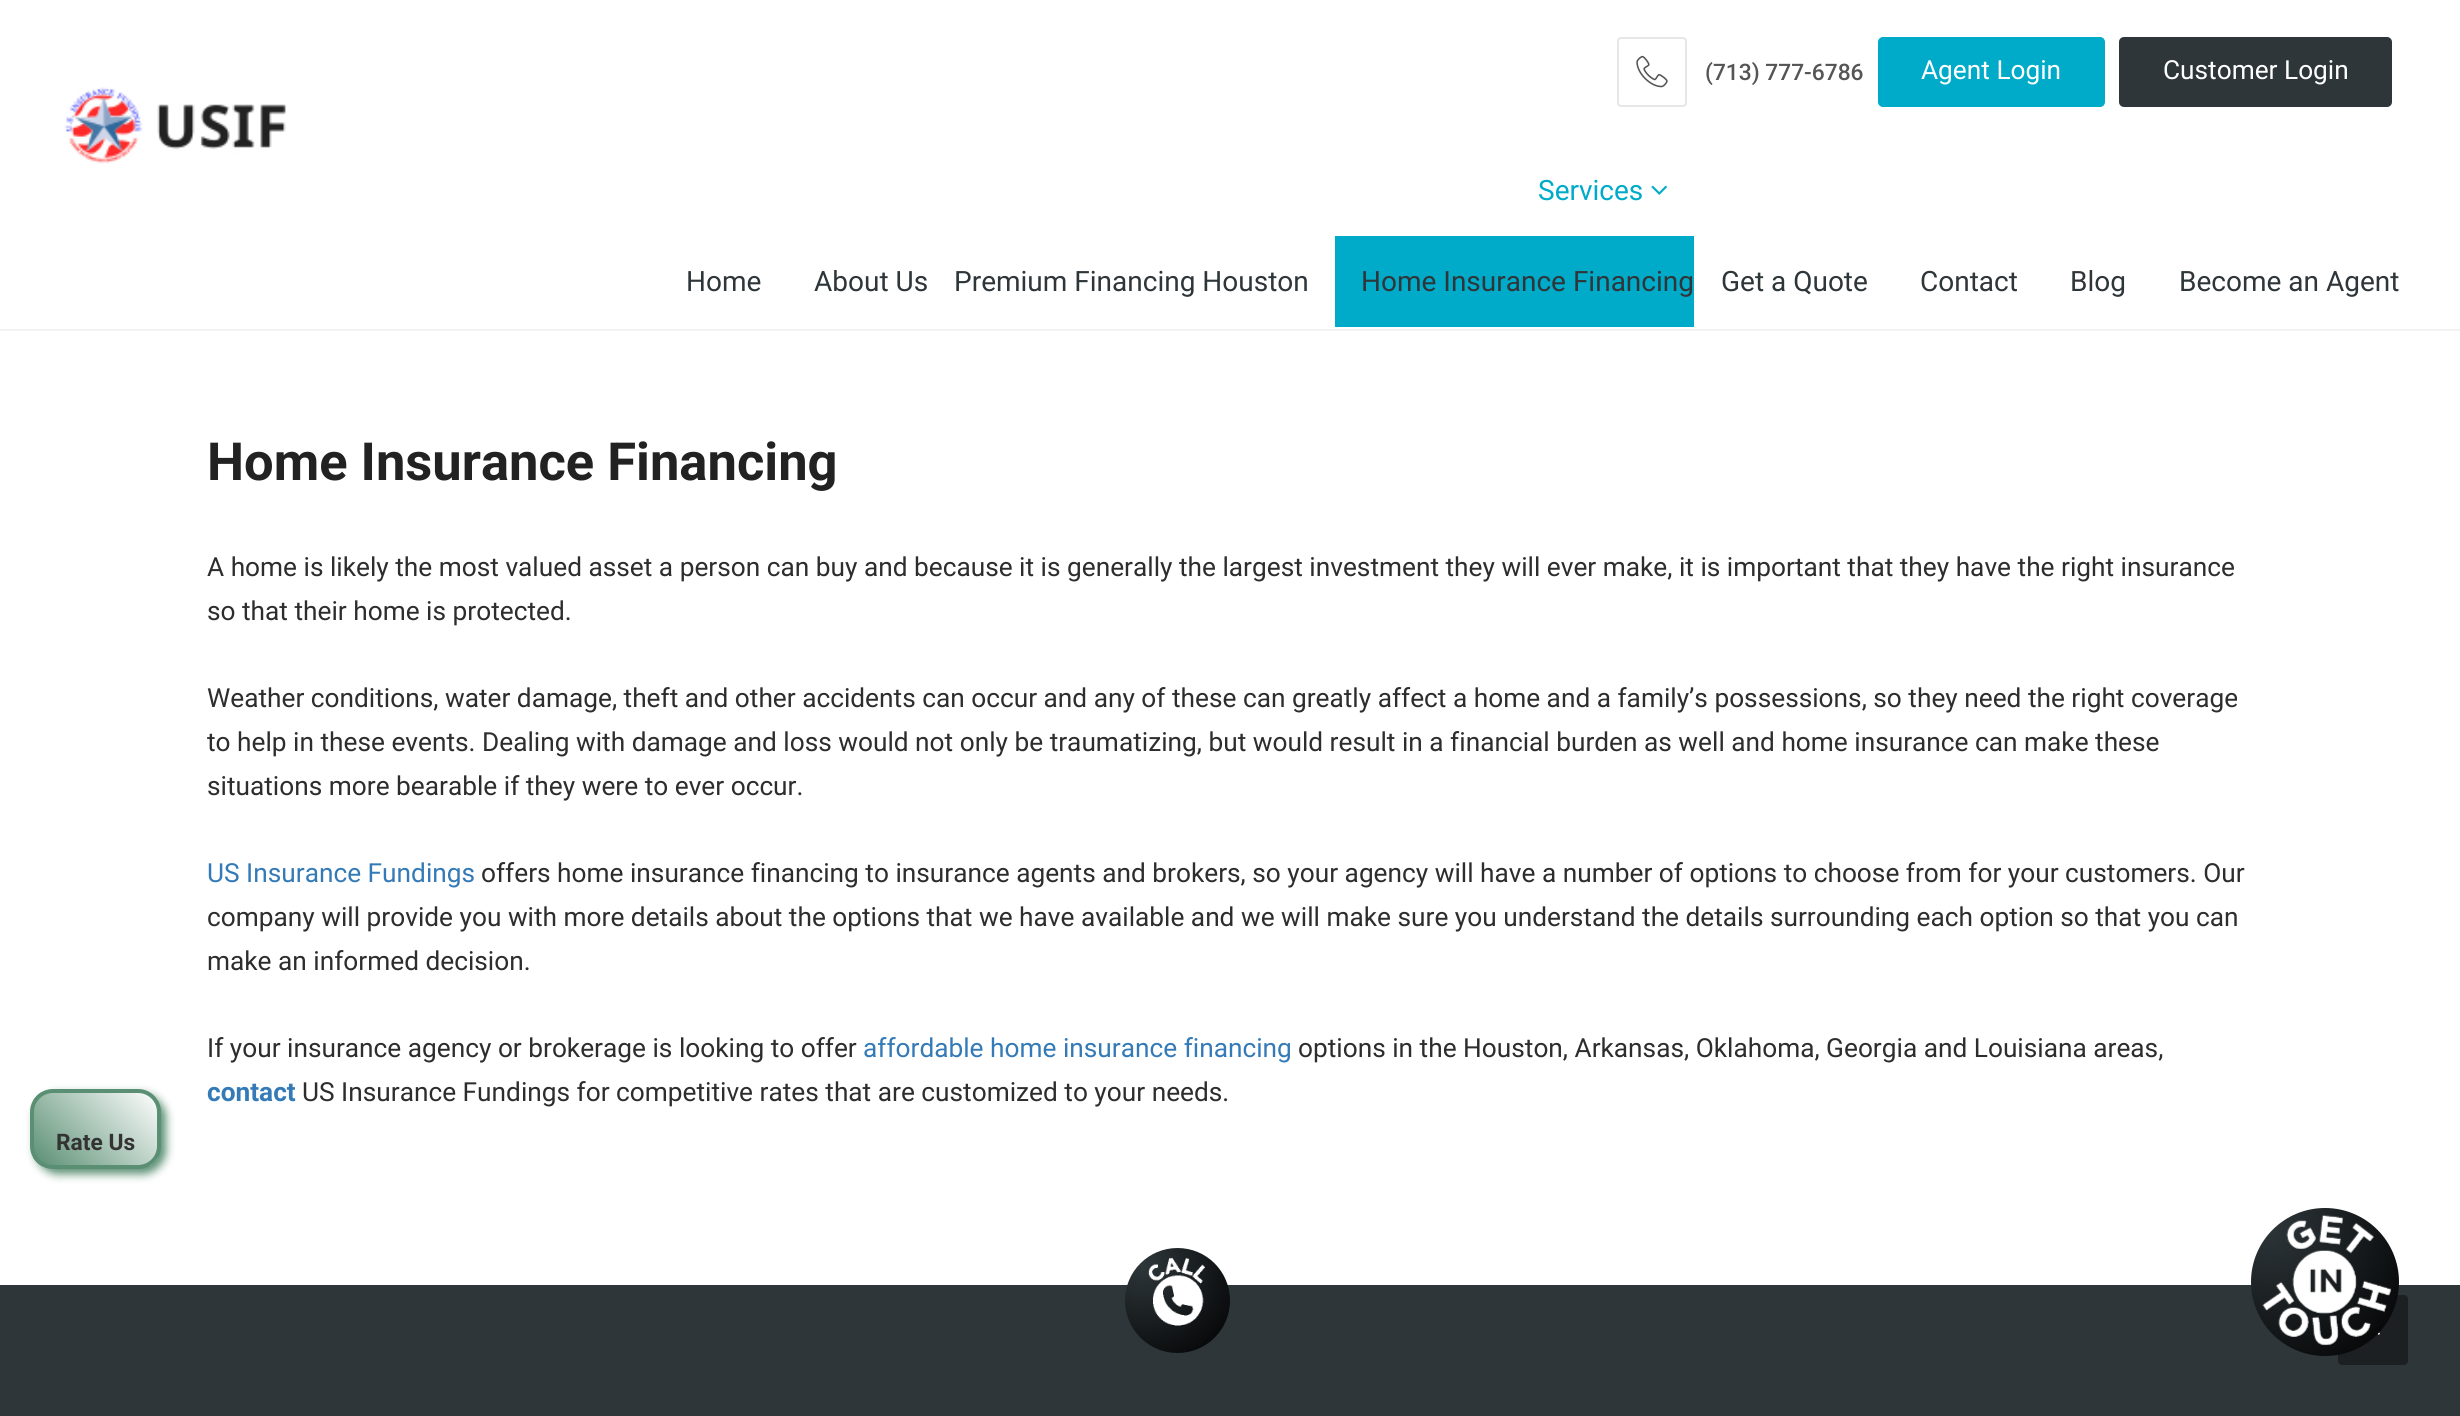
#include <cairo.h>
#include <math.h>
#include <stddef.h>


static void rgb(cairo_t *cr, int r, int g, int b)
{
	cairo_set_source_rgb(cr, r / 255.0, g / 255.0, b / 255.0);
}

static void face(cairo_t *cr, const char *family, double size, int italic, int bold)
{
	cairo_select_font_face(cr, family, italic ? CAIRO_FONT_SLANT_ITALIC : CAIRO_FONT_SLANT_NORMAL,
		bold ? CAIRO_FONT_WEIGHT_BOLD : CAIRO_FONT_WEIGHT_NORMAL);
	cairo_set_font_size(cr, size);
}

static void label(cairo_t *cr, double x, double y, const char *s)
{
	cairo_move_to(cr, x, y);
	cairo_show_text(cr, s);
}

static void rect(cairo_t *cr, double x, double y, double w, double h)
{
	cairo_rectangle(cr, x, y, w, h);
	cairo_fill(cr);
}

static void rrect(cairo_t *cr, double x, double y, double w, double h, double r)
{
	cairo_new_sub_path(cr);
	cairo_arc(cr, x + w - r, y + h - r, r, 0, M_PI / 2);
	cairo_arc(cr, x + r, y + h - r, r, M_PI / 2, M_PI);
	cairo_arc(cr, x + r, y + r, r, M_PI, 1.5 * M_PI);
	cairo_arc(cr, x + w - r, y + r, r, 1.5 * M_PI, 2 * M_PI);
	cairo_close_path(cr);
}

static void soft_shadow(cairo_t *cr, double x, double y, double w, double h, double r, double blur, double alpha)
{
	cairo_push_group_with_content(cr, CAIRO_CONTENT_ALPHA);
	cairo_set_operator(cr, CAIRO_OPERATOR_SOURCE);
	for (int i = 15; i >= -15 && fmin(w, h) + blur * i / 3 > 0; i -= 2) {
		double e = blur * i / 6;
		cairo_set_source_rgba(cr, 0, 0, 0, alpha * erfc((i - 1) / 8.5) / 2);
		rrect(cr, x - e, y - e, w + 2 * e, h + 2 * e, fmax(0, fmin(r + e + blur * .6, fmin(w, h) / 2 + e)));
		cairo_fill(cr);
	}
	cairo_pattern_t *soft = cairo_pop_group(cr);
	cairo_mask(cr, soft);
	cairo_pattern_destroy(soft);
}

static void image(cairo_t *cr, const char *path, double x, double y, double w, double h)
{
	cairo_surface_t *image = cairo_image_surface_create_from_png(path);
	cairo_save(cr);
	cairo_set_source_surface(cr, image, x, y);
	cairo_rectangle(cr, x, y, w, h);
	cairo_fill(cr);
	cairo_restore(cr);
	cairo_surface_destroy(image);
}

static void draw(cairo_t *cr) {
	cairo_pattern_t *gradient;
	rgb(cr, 255, 255, 255);
	cairo_paint(cr);
	rgb(cr, 242, 242, 242);
	rect(cr, 0, 329, 2460, 2);
	rrect(cr, 1618, 38, 68, 68, 3);
	rgb(cr, 230, 230, 230);
	cairo_stroke(cr);
	image(cr, "image0.png", 1636, 55, 32, 33);
	face(cr, "Roboto Medium", 22.75, 0, 0);
	rgb(cr, 85, 85, 85);
	label(cr, 1705, 80, "(713) 777-6786");
	rgb(cr, 0, 171, 201);
	rrect(cr, 1878, 37, 227, 70, 5);
	cairo_fill(cr);
	face(cr, "Roboto", 26.25, 0, 0);
	rgb(cr, 255, 255, 255);
	label(cr, 1921, 79, "Agent Login");
	rgb(cr, 46, 54, 58);
	rrect(cr, 2119, 37, 273, 70, 5);
	cairo_fill(cr);
	rgb(cr, 255, 255, 255);
	label(cr, 2163, 79, "Customer Login");
	image(cr, "image1.png", 64, 87, 222, 77);
	face(cr, "Roboto", 28, 0, 0);
	rgb(cr, 46, 54, 58);
	label(cr, 686, 291, "Home");
	label(cr, 814, 291, "About Us");
	rgb(cr, 0, 171, 201);
	label(cr, 1538, 200, "Services");
	image(cr, "image2.png", 1651, 185, 16, 10);
	rgb(cr, 46, 54, 58);
	label(cr, 954, 291, "Premium Financing Houston");
	rgb(cr, 0, 171, 201);
	rect(cr, 1335, 236, 359, 91);
	rgb(cr, 46, 54, 58);
	label(cr, 1361, 291, "Home Insurance Financing");
	label(cr, 1721, 291, "Get a Quote");
	label(cr, 1920, 291, "Contact");
	label(cr, 2070, 291, "Blog");
	label(cr, 2179, 291, "Become an Agent");
	face(cr, "Roboto", 52.5, 0, 1);
	rgb(cr, 34, 34, 34);
	label(cr, 207, 480, "Home Insurance Financing");
	face(cr, "Roboto", 26.25, 0, 0);
	rgb(cr, 45, 45, 45);
	label(cr, 207, 576, "A home is likely the most valued asset a person can buy and because it is generally the largest investment they will ever make, it is important that they have the right insurance");
	label(cr, 207, 620, "so that their home is protected.");
	label(cr, 207, 707, "Weather conditions, water damage, theft and other accidents can occur and any of these can greatly affect a home and a family’s possessions, so they need the right coverage");
	label(cr, 207, 751, "to help in these events. Dealing with damage and loss would not only be traumatizing, but would result in a financial burden as well and home insurance can make these");
	label(cr, 207, 795, "situations more bearable if they were to ever occur.");
	rgb(cr, 51, 122, 183);
	label(cr, 207, 882, "US Insurance Fundings");
	rgb(cr, 45, 45, 45);
	label(cr, 481, 882, "offers home insurance financing to insurance agents and brokers, so your agency will have a number of options to choose from for your customers. Our");
	label(cr, 207, 926, "company will provide you with more details about the options that we have available and we will make sure you understand the details surrounding each option so that you can");
	label(cr, 207, 970, "make an informed decision.");
	label(cr, 207, 1057, "If your insurance agency or brokerage is looking to offer");
	rgb(cr, 51, 122, 183);
	label(cr, 863, 1057, "affordable home insurance financing");
	rgb(cr, 45, 45, 45);
	label(cr, 1298, 1057, "options in the Houston, Arkansas, Oklahoma, Georgia and Louisiana areas,");
	face(cr, "Roboto", 26.25, 0, 1);
	rgb(cr, 51, 122, 183);
	label(cr, 207, 1101, "contact");
	face(cr, "Roboto", 26.25, 0, 0);
	rgb(cr, 45, 45, 45);
	label(cr, 302, 1101, "US Insurance Fundings for competitive rates that are customized to your needs.");
	rgb(cr, 46, 54, 58);
	rect(cr, 0, 1285, 2460, 131);
	rgb(cr, 90, 143, 115);
	soft_shadow(cr, 35, 1094, 131, 80, 23, 4.5, 1);
	cairo_save(cr);
	rrect(cr, 30, 1089, 131, 80, 23);
	cairo_clip(cr);
	gradient = cairo_pattern_create_linear(46, 1178, 145, 1079);
	cairo_pattern_add_color_stop_rgba(gradient, 0, 0.353, 0.561, 0.451, 1);
	cairo_pattern_add_color_stop_rgba(gradient, 1, 1, 1, 1, 1);
	cairo_set_source(cr, gradient);
	cairo_pattern_destroy(gradient);
	rect(cr, 33, 1092, 125, 74);
	cairo_restore(cr);
	rrect(cr, 32, 1091, 127, 76, 21);
	rgb(cr, 90, 143, 115);
	cairo_set_line_width(cr, 4);
	cairo_stroke(cr);
	face(cr, "Roboto", 22.75, 0, 1);
	rgb(cr, 51, 51, 51);
	label(cr, 56, 1150, "Rate Us");
	gradient = cairo_pattern_create_radial(1143, 1265, 0, 1143, 1265, 124);
	cairo_pattern_add_color_stop_rgba(gradient, 0, 0.18, 0.212, 0.227, 1);
	cairo_pattern_add_color_stop_rgba(gradient, 1, 0, 0, 0, 1);
	cairo_set_source(cr, gradient);
	cairo_pattern_destroy(gradient);
	cairo_new_path(cr);
	cairo_arc(cr, 1177.5, 1300.5, 52.5, 0, 2 * M_PI);
	cairo_fill(cr);
	image(cr, "image3.png", 1148, 1257, 57, 69);
	rgb(cr, 28, 32, 35);
	rrect(cr, 2338, 1295, 70, 70, 4);
	cairo_fill(cr);
	image(cr, "image5.png", 2377, 1332, 3, 3);
	gradient = cairo_pattern_create_radial(2268, 1225, 0, 2268, 1225, 186);
	cairo_pattern_add_color_stop_rgba(gradient, 0, 0.18, 0.212, 0.227, 1);
	cairo_pattern_add_color_stop_rgba(gradient, 1, 0, 0, 0, 1);
	cairo_set_source(cr, gradient);
	cairo_pattern_destroy(gradient);
	cairo_arc(cr, 2325, 1282, 74, 0, 2 * M_PI);
	cairo_fill(cr);
	image(cr, "image4.png", 2262, 1214, 130, 132);
}

int main(void) {
	cairo_surface_t *surface = cairo_image_surface_create(CAIRO_FORMAT_RGB24, 2460, 1416);
	cairo_t *cr = cairo_create(surface);
	cairo_font_options_t *options = cairo_font_options_create();
	cairo_font_options_set_hint_metrics(options, CAIRO_HINT_METRICS_OFF);
	cairo_font_options_set_hint_style(options, CAIRO_HINT_STYLE_NONE);
	cairo_set_font_options(cr, options);
	cairo_set_miter_limit(cr, 4);
	draw(cr);
	cairo_surface_write_to_png(surface, "render.png");
	cairo_font_options_destroy(options);
	cairo_destroy(cr);
	cairo_surface_destroy(surface);
	return 0;
}
